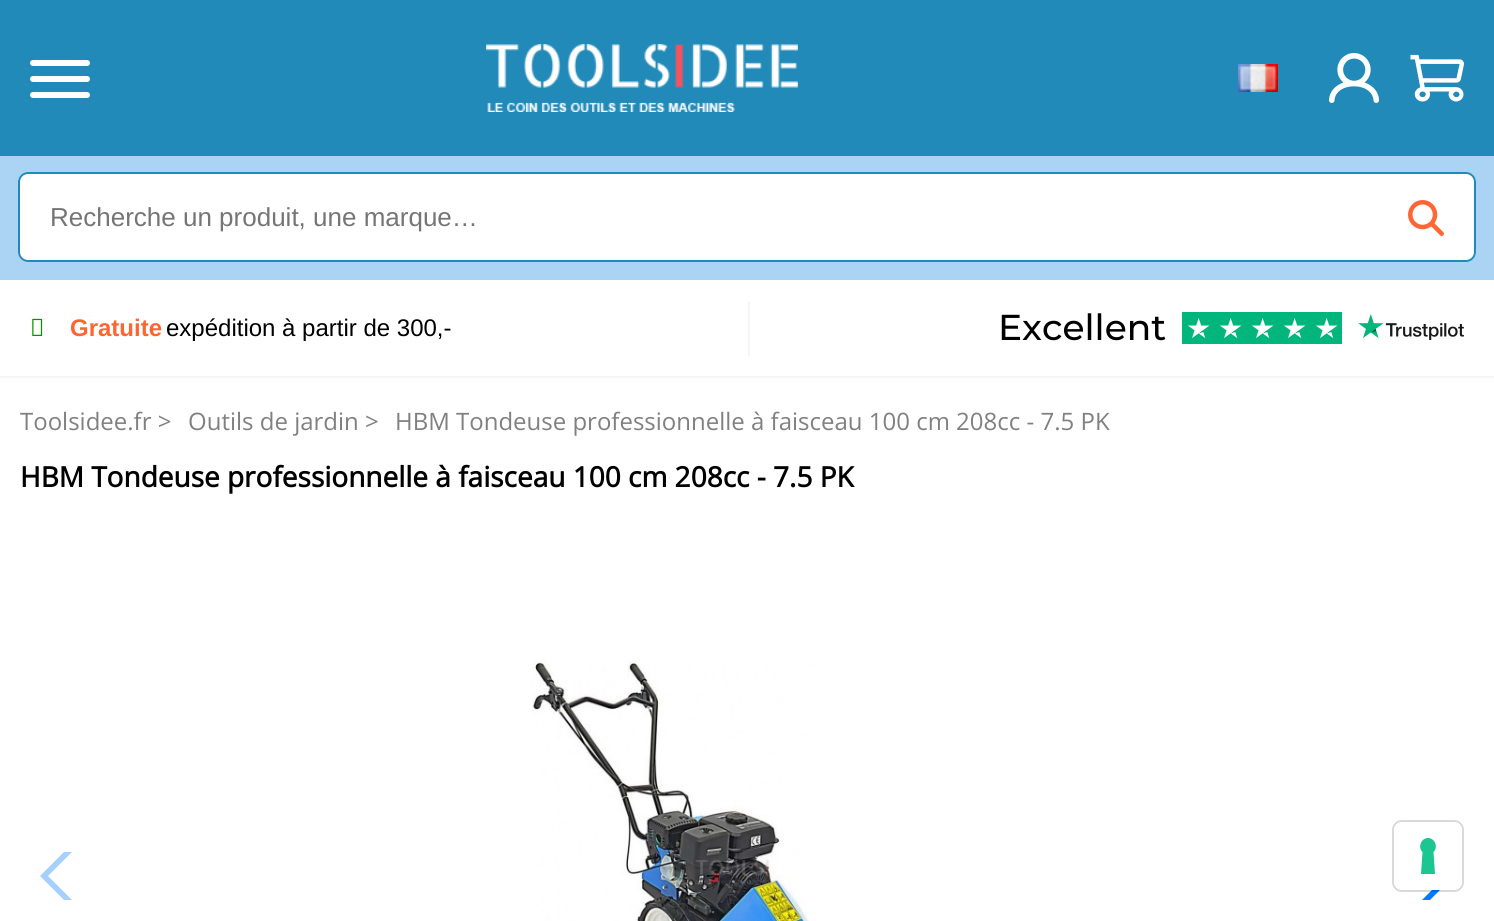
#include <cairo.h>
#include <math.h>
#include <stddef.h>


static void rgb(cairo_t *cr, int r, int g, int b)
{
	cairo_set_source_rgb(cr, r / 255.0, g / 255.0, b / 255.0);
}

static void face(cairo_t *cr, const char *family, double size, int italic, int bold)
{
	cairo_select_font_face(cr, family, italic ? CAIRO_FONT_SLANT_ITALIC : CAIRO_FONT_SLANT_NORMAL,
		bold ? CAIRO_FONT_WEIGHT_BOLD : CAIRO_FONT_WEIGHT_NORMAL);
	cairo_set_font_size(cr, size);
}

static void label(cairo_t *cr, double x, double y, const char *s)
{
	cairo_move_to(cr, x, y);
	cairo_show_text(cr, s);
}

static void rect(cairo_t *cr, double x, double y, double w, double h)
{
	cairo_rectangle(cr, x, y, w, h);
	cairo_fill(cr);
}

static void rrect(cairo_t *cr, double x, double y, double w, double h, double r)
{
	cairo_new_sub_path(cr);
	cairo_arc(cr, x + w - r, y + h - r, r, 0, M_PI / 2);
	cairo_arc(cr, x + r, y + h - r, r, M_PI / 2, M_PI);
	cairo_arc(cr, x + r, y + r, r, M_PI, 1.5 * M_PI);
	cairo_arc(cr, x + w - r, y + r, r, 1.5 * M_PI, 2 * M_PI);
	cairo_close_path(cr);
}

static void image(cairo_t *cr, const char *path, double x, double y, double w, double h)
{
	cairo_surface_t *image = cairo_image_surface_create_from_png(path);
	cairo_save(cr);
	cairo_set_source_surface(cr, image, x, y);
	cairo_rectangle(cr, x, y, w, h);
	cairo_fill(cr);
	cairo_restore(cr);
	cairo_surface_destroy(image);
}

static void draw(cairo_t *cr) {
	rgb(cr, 255, 255, 255);
	cairo_paint(cr);
	rgb(cr, 33, 138, 185);
	rect(cr, 0, 0, 1494, 156);
	rgb(cr, 255, 255, 255);
	rrect(cr, 30, 60, 60, 6, 3);
	cairo_fill(cr);
	rrect(cr, 30, 76, 60, 6, 3);
	cairo_fill(cr);
	rrect(cr, 30, 92, 60, 6, 3);
	cairo_fill(cr);
	image(cr, "image0.png", 486, 44, 312, 68);
	image(cr, "image1.png", 1238, 64, 40, 28);
	image(cr, "image2.png", 1329, 53, 50, 50);
	image(cr, "image3.png", 1410, 54, 54, 48);
	rgb(cr, 171, 212, 244);
	rect(cr, 0, 156, 1494, 124);
	rgb(cr, 255, 255, 255);
	rrect(cr, 18, 172, 1458, 90, 10);
	cairo_fill(cr);
	image(cr, "image4.png", 1408, 200, 36, 36);
	rrect(cr, 19, 173, 1456, 88, 9);
	rgb(cr, 33, 138, 185);
	cairo_stroke(cr);
	face(cr, "Liberation Sans", 26, 0, 0);
	rgb(cr, 117, 117, 117);
	label(cr, 50, 226, "Recherche un produit, une marque…");
	rgb(cr, 245, 245, 245);
	rect(cr, 0, 376, 1494, 2);
	rect(cr, 748, 302, 2, 54);
	image(cr, "image5.png", 32, 318, 11, 18);
	face(cr, "Liberation Sans", 24, 0, 1);
	rgb(cr, 253, 102, 51);
	label(cr, 70, 336, "Gratuite");
	face(cr, "Liberation Sans", 24, 0, 0);
	rgb(cr, 0, 0, 0);
	label(cr, 166, 336, "expédition à partir de 300,-");
	face(cr, "Montserrat Medium", 36, 0, 0);
	label(cr, 998, 340, "Excellent");
	rgb(cr, 0, 182, 122);
	rect(cr, 1182, 312, 160, 32);
	image(cr, "image6.png", 1188, 318, 22, 20);
	image(cr, "image6.png", 1220, 318, 22, 20);
	image(cr, "image6.png", 1252, 318, 22, 20);
	image(cr, "image6.png", 1284, 318, 22, 20);
	image(cr, "image6.png", 1316, 318, 22, 20);
	image(cr, "image7.png", 1358, 314, 106, 26);
	face(cr, "Open Sans", 24, 0, 0);
	rgb(cr, 128, 128, 128);
	label(cr, 20, 430, "Toolsidee.fr >");
	label(cr, 188, 430, "Outils de jardin >");
	label(cr, 395, 430, "HBM Tondeuse professionnelle à faisceau 100 cm 208cc - 7.5 PK");
	face(cr, "Open Sans", 28, 0, 1);
	rgb(cr, 0, 0, 0);
	label(cr, 20, 487, "HBM Tondeuse professionnelle à faisceau 100 cm 208cc - 7.5 PK");
	cairo_save(cr);
	cairo_rectangle(cr, 40, 852, 54, 48);
	cairo_clip(cr);
	rgb(cr, 166, 208, 255);
	cairo_new_path(cr);
	cairo_move_to(cr, 40, 876);
	cairo_line_to(cr, 84, 832);
	cairo_line_to(cr, 88, 836);
	cairo_line_to(cr, 48, 876);
	cairo_line_to(cr, 88, 916);
	cairo_line_to(cr, 84, 920);
	cairo_close_path(cr);
	cairo_fill(cr);
	cairo_restore(cr);
	image(cr, "image8.png", 532, 659, 284, 262);
	cairo_save(cr);
	cairo_rectangle(cr, 1400, 852, 54, 48);
	cairo_clip(cr);
	rgb(cr, 0, 122, 255);
	cairo_new_path(cr);
	cairo_move_to(cr, 1454, 876);
	cairo_line_to(cr, 1410, 920);
	cairo_line_to(cr, 1406, 916);
	cairo_line_to(cr, 1446, 876);
	cairo_line_to(cr, 1406, 836);
	cairo_line_to(cr, 1410, 832);
	cairo_close_path(cr);
	cairo_fill(cr);
	cairo_restore(cr);
	rrect(cr, 1393, 821, 70, 70, 9);
	cairo_set_source_rgba(cr, 0, 0, 0, 0.15);
	cairo_stroke(cr);
	rgb(cr, 255, 255, 255);
	rrect(cr, 1394, 822, 68, 68, 8);
	cairo_fill(cr);
	rgb(cr, 28, 198, 145);
	cairo_set_fill_rule(cr, CAIRO_FILL_RULE_EVEN_ODD);
	cairo_new_path(cr);
	cairo_move_to(cr, 1428, 838);
	cairo_curve_to(cr, 1435, 838, 1438.5, 847.5, 1433.5, 852);
	cairo_line_to(cr, 1435, 874);
	cairo_line_to(cr, 1421, 874);
	cairo_line_to(cr, 1422.5, 852);
	cairo_curve_to(cr, 1417.5, 847.5, 1421, 838, 1428, 838);
	cairo_close_path(cr);
	cairo_fill(cr);
}

int main(void) {
	cairo_surface_t *surface = cairo_image_surface_create(CAIRO_FORMAT_RGB24, 1494, 921);
	cairo_t *cr = cairo_create(surface);
	cairo_font_options_t *options = cairo_font_options_create();
	cairo_font_options_set_hint_metrics(options, CAIRO_HINT_METRICS_OFF);
	cairo_font_options_set_hint_style(options, CAIRO_HINT_STYLE_NONE);
	cairo_set_font_options(cr, options);
	cairo_set_miter_limit(cr, 4);
	draw(cr);
	cairo_surface_write_to_png(surface, "render.png");
	cairo_font_options_destroy(options);
	cairo_destroy(cr);
	cairo_surface_destroy(surface);
	return 0;
}
